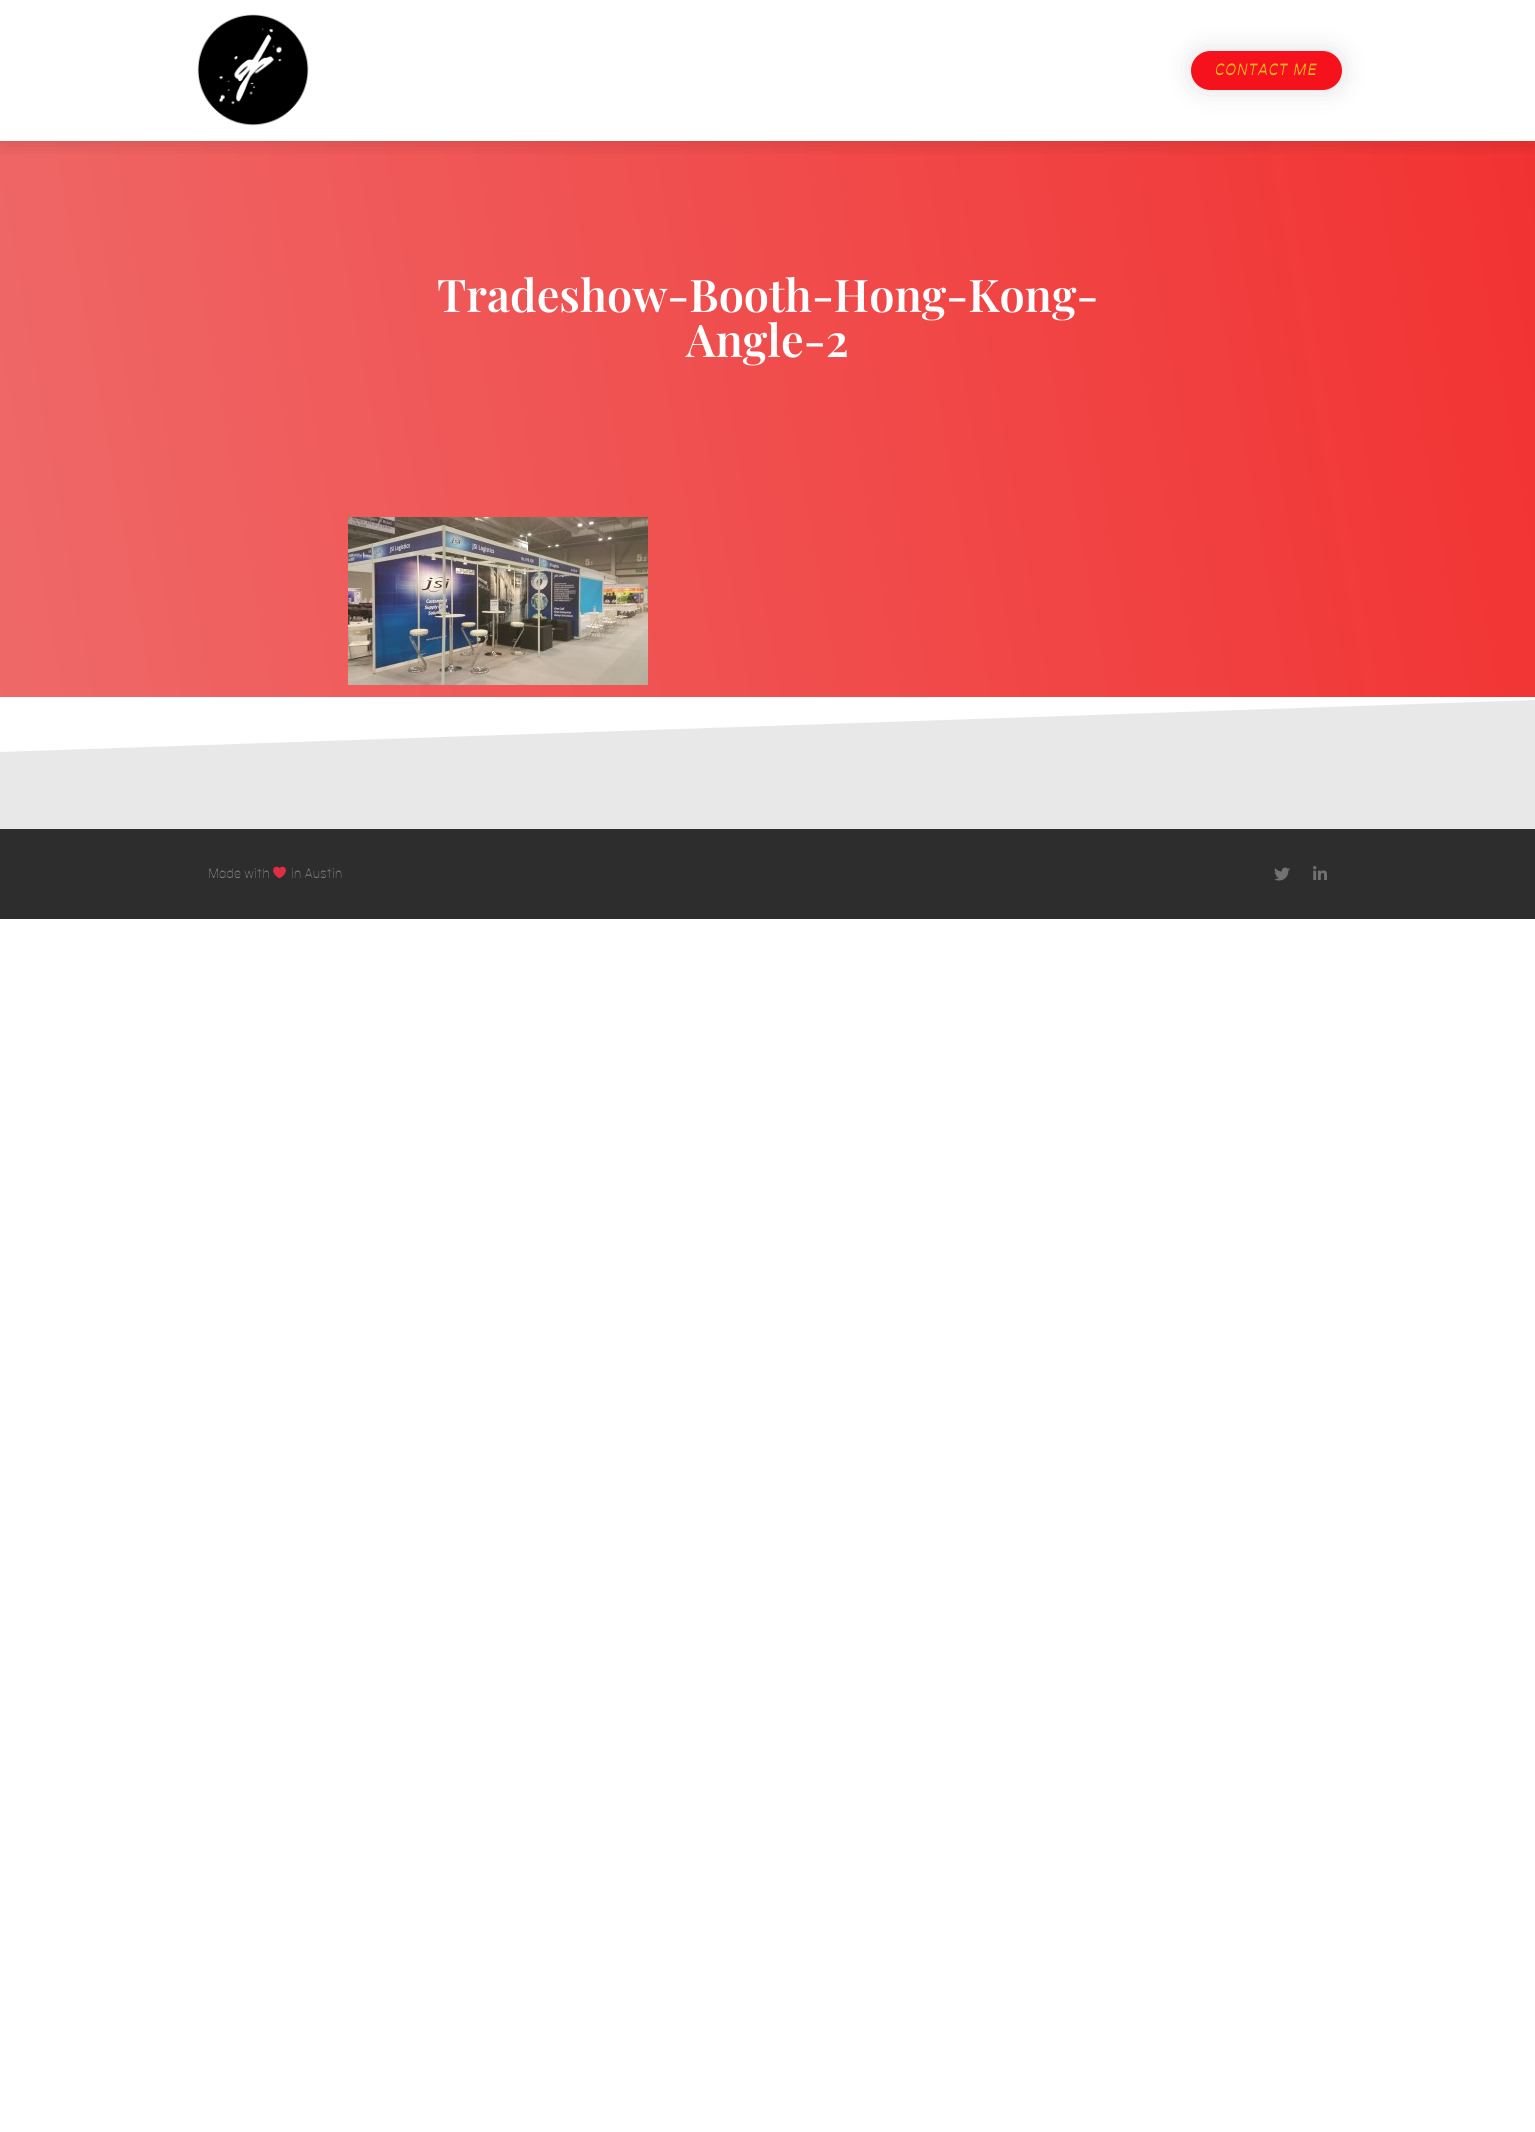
#include <cairo.h>
#include <math.h>
#include <stddef.h>


static void rgb(cairo_t *cr, int r, int g, int b)
{
	cairo_set_source_rgb(cr, r / 255.0, g / 255.0, b / 255.0);
}

static void face(cairo_t *cr, const char *family, double size, int italic, int bold)
{
	cairo_select_font_face(cr, family, italic ? CAIRO_FONT_SLANT_ITALIC : CAIRO_FONT_SLANT_NORMAL,
		bold ? CAIRO_FONT_WEIGHT_BOLD : CAIRO_FONT_WEIGHT_NORMAL);
	cairo_set_font_size(cr, size);
}

static void label(cairo_t *cr, double x, double y, const char *s)
{
	cairo_move_to(cr, x, y);
	cairo_show_text(cr, s);
}

static void tracked(cairo_t *cr, double x, double y, const char *s, double letter, double word)
{
	cairo_move_to(cr, x, y);
	while (*s) {
		char ch[5] = {0};
		int n = 0;
		do ch[n++] = *s++; while ((*s & 0xC0) == 0x80);
		cairo_show_text(cr, ch);
		cairo_rel_move_to(cr, letter + word * (*ch == ' '), 0);
	}
}

static void rect(cairo_t *cr, double x, double y, double w, double h)
{
	cairo_rectangle(cr, x, y, w, h);
	cairo_fill(cr);
}

static void rrect(cairo_t *cr, double x, double y, double w, double h, double r)
{
	cairo_new_sub_path(cr);
	cairo_arc(cr, x + w - r, y + h - r, r, 0, M_PI / 2);
	cairo_arc(cr, x + r, y + h - r, r, M_PI / 2, M_PI);
	cairo_arc(cr, x + r, y + r, r, M_PI, 1.5 * M_PI);
	cairo_arc(cr, x + w - r, y + r, r, 1.5 * M_PI, 2 * M_PI);
	cairo_close_path(cr);
}

static void soft_shadow(cairo_t *cr, double x, double y, double w, double h, double r, double blur, double alpha)
{
	cairo_push_group_with_content(cr, CAIRO_CONTENT_ALPHA);
	cairo_set_operator(cr, CAIRO_OPERATOR_SOURCE);
	for (int i = 15; i >= -15 && fmin(w, h) + blur * i / 3 > 0; i -= 2) {
		double e = blur * i / 6;
		cairo_set_source_rgba(cr, 0, 0, 0, alpha * erfc((i - 1) / 8.5) / 2);
		rrect(cr, x - e, y - e, w + 2 * e, h + 2 * e, fmax(0, fmin(r + e + blur * .6, fmin(w, h) / 2 + e)));
		cairo_fill(cr);
	}
	cairo_pattern_t *soft = cairo_pop_group(cr);
	cairo_mask(cr, soft);
	cairo_pattern_destroy(soft);
}

static void image(cairo_t *cr, const char *path, double x, double y, double w, double h)
{
	cairo_surface_t *image = cairo_image_surface_create_from_png(path);
	cairo_save(cr);
	cairo_set_source_surface(cr, image, x, y);
	cairo_rectangle(cr, x, y, w, h);
	cairo_fill(cr);
	cairo_restore(cr);
	cairo_surface_destroy(image);
}

static void draw(cairo_t *cr) {
	cairo_pattern_t *gradient;
	rgb(cr, 255, 255, 255);
	cairo_paint(cr);
	gradient = cairo_pattern_create_linear(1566, 315, -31, 597);
	cairo_pattern_add_color_stop_rgba(gradient, 0, 0.949, 0.196, 0.196, 1);
	cairo_pattern_add_color_stop_rgba(gradient, 1, 0.937, 0.412, 0.412, 1);
	cairo_set_source(cr, gradient);
	cairo_pattern_destroy(gradient);
	rect(cr, 0, 141, 1535, 556);
	cairo_save(cr);
	cairo_rectangle(cr, 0, 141, 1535, 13);
	cairo_clip(cr);
	rgb(cr, 0, 0, 0);
	soft_shadow(cr, 0, 0, 1535, 141, 0, 12, 0.15);
	cairo_restore(cr);
	image(cr, "image0.png", 197, 14, 112, 112);
	rgb(cr, 0, 0, 0);
	soft_shadow(cr, 1191, 51, 151, 39, 19.5, 13.5, 0.12);
	rgb(cr, 246, 18, 28);
	rrect(cr, 1191, 51, 151, 39, 19.5);
	cairo_fill(cr);
	face(cr, "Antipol", 15, 1, 1);
	rgb(cr, 247, 186, 32);
	tracked(cr, 1215, 75, "CONTACT ME", 1.4, 0);
	face(cr, "Playfair Display SemiBold", 45, 0, 0);
	rgb(cr, 255, 255, 255);
	label(cr, 437, 312, "Tradeshow-Booth-Hong-Kong-");
	label(cr, 686, 357, "Angle-2");
	image(cr, "image1.png", 348, 517, 300, 168);
	rgb(cr, 232, 232, 232);
	rect(cr, 0, 700, 1535, 129);
	rgb(cr, 255, 255, 255);
	cairo_new_path(cr);
	cairo_move_to(cr, 1535, 700);
	cairo_line_to(cr, 1535, 697);
	cairo_line_to(cr, -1, 697);
	cairo_line_to(cr, -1, 752);
	cairo_close_path(cr);
	cairo_fill(cr);
	rgb(cr, 45, 45, 45);
	rect(cr, 0, 829, 1535, 90);
	face(cr, "Antipol Light", 13, 0, 0);
	rgb(cr, 127, 127, 127);
	label(cr, 208, 878, "Made with");
	image(cr, "image2.png", 273, 866, 13, 13);
	label(cr, 291, 878, "in Austin");
	image(cr, "image3.png", 1274, 867, 16, 14);
	image(cr, "image4.png", 1313, 866, 14, 14);
}

int main(void) {
	cairo_surface_t *surface = cairo_image_surface_create(CAIRO_FORMAT_RGB24, 1535, 2132);
	cairo_t *cr = cairo_create(surface);
	cairo_font_options_t *options = cairo_font_options_create();
	cairo_font_options_set_hint_metrics(options, CAIRO_HINT_METRICS_OFF);
	cairo_font_options_set_hint_style(options, CAIRO_HINT_STYLE_NONE);
	cairo_set_font_options(cr, options);
	cairo_set_miter_limit(cr, 4);
	draw(cr);
	cairo_surface_write_to_png(surface, "render.png");
	cairo_font_options_destroy(options);
	cairo_destroy(cr);
	cairo_surface_destroy(surface);
	return 0;
}
